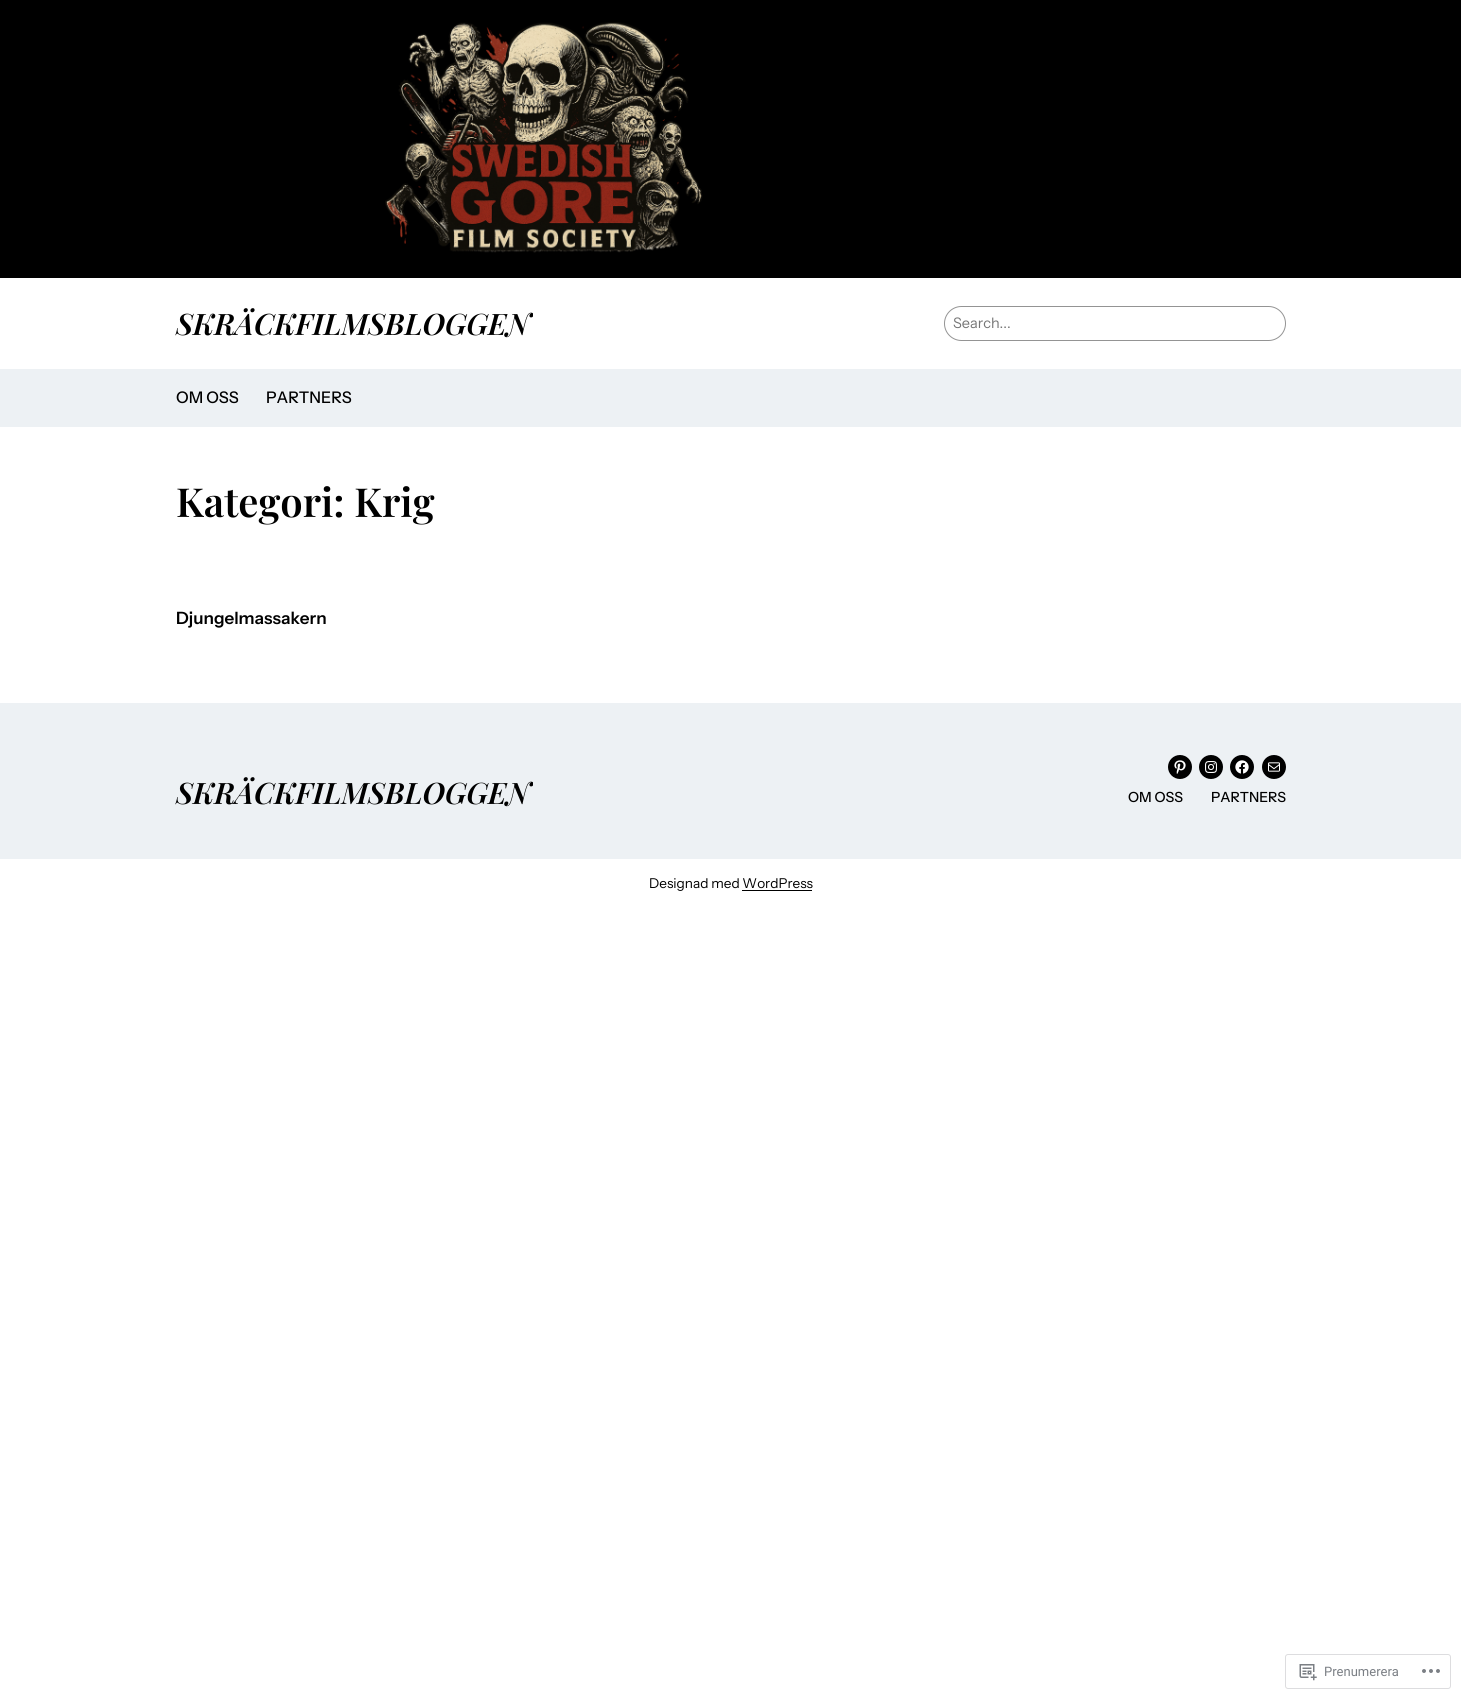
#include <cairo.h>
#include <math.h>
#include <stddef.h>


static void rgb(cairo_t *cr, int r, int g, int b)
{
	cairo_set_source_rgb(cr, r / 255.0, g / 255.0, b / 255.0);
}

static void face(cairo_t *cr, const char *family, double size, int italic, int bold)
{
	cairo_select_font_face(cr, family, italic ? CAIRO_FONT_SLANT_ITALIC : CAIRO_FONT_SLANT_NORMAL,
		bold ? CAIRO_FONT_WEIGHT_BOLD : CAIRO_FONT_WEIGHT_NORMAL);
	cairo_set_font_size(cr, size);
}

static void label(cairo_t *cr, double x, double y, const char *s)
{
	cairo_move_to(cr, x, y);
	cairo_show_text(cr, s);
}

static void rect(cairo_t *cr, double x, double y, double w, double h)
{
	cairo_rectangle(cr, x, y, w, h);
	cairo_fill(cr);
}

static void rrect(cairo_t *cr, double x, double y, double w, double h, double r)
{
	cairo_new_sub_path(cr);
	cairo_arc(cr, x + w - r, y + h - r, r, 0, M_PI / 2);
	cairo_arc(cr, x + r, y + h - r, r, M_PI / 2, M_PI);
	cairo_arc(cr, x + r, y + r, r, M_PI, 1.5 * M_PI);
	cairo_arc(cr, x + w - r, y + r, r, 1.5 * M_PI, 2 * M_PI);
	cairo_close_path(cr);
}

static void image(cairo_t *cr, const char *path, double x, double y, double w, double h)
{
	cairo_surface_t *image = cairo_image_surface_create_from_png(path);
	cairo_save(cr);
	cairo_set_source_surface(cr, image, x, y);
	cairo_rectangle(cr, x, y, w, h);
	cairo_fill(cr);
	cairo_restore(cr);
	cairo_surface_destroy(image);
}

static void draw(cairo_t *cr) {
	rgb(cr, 255, 255, 255);
	cairo_paint(cr);
	rgb(cr, 0, 0, 0);
	rect(cr, 0, 0, 1461, 278);
	image(cr, "image0.png", 385, 22, 318, 231);
	face(cr, "Playfair Display SemiBold", 29.6, 1, 0);
	label(cr, 176, 335, "SKRÄCKFILMSBLOGGEN");
	rrect(cr, 944.5, 306.5, 341, 34, 17);
	rgb(cr, 148, 148, 148);
	cairo_set_line_width(cr, 1);
	cairo_stroke(cr);
	face(cr, "Instrument Sans", 14.5, 0, 0);
	rgb(cr, 117, 117, 117);
	label(cr, 953, 328, "Search...");
	rgb(cr, 237, 241, 244);
	rect(cr, 0, 369, 1461, 58);
	face(cr, "Instrument Sans Medium", 16, 0, 0);
	rgb(cr, 0, 0, 0);
	label(cr, 176, 403, "OM OSS");
	label(cr, 266, 403, "PARTNERS");
	face(cr, "Playfair Display SemiBold", 40, 0, 0);
	label(cr, 176, 517, "Kategori: Krig");
	face(cr, "Instrument Sans SemiBold", 17, 0, 0);
	label(cr, 176, 624, "Djungelmassakern");
	rgb(cr, 237, 241, 244);
	rect(cr, 0, 703, 1461, 156);
	face(cr, "Playfair Display SemiBold", 29.6, 1, 0);
	rgb(cr, 0, 0, 0);
	label(cr, 176, 804, "SKRÄCKFILMSBLOGGEN");
	cairo_new_path(cr);
	cairo_arc(cr, 1180, 767, 12, 0, 2 * M_PI);
	cairo_fill(cr);
	image(cr, "image1.png", 1174, 760, 12, 14);
	cairo_arc(cr, 1211, 767, 12, 0, 2 * M_PI);
	cairo_fill(cr);
	image(cr, "image2.png", 1205, 761, 12, 12);
	cairo_arc(cr, 1242, 767, 12, 0, 2 * M_PI);
	cairo_fill(cr);
	image(cr, "image3.png", 1235, 760, 14, 14);
	cairo_arc(cr, 1274, 767, 12, 0, 2 * M_PI);
	cairo_fill(cr);
	image(cr, "image4.png", 1268, 762, 12, 10);
	face(cr, "Instrument Sans Medium", 14, 0, 0);
	label(cr, 1128, 802, "OM OSS");
	label(cr, 1211, 802, "PARTNERS");
	face(cr, "Instrument Sans", 13.6, 0, 0);
	label(cr, 649, 888, "Designad med WordPress");
	rect(cr, 742, 890, 70, 1);
	rrect(cr, 1285.5, 1654.5, 165, 34, 2.5);
	rgb(cr, 221, 221, 223);
	cairo_stroke(cr);
	image(cr, "image5.png", 1299, 1664, 18, 17);
	face(cr, "Roboto", 13, 0, 0);
	rgb(cr, 123, 127, 133);
	label(cr, 1324, 1676, "Prenumerera");
	image(cr, "image6.png", 1422, 1669, 18, 4);
}

int main(void) {
	cairo_surface_t *surface = cairo_image_surface_create(CAIRO_FORMAT_RGB24, 1461, 1699);
	cairo_t *cr = cairo_create(surface);
	cairo_font_options_t *options = cairo_font_options_create();
	cairo_font_options_set_hint_metrics(options, CAIRO_HINT_METRICS_OFF);
	cairo_font_options_set_hint_style(options, CAIRO_HINT_STYLE_NONE);
	cairo_set_font_options(cr, options);
	cairo_set_miter_limit(cr, 4);
	draw(cr);
	cairo_surface_write_to_png(surface, "render.png");
	cairo_font_options_destroy(options);
	cairo_destroy(cr);
	cairo_surface_destroy(surface);
	return 0;
}
